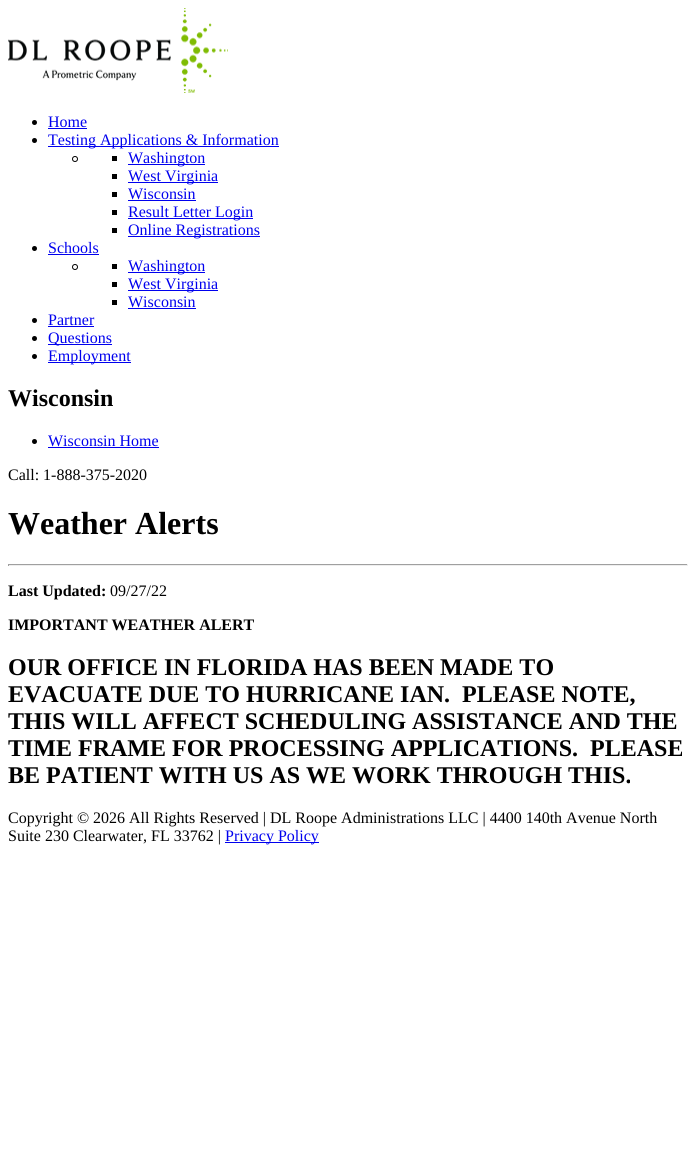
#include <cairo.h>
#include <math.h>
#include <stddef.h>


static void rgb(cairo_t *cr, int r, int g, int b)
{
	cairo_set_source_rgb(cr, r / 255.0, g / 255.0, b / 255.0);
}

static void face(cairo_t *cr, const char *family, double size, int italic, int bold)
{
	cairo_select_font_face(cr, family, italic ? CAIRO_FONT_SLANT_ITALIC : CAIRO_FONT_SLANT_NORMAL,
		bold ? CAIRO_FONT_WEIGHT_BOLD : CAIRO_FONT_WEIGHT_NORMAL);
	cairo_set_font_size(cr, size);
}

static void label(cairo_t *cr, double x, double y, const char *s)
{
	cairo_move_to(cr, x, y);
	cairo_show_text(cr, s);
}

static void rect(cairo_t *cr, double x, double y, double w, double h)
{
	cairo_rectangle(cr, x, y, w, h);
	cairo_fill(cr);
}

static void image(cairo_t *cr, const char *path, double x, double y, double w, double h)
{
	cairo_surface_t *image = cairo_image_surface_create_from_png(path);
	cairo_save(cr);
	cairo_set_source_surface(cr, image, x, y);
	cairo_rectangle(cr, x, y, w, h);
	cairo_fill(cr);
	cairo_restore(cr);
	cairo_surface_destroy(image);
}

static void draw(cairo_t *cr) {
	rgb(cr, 255, 255, 255);
	cairo_paint(cr);
	image(cr, "image0.png", 8, 8, 220, 85);
	rgb(cr, 0, 0, 0);
	cairo_arc(cr, 34.5, 122.5, 2.5, 0, 2 * M_PI);
	cairo_fill(cr);
	face(cr, "Liberation Serif", 16, 0, 0);
	rgb(cr, 0, 0, 238);
	label(cr, 48, 127, "Home");
	rect(cr, 48, 128, 39, 1);
	rgb(cr, 0, 0, 0);
	cairo_new_path(cr);
	cairo_arc(cr, 34.5, 140.5, 2.5, 0, 2 * M_PI);
	cairo_fill(cr);
	rgb(cr, 0, 0, 238);
	rect(cr, 48, 146, 231, 1);
	label(cr, 48, 145, "Testing Applications & Information");
	cairo_new_path(cr);
	cairo_arc(cr, 75, 159, 2.5, 0, 2 * M_PI);
	rgb(cr, 0, 0, 0);
	cairo_set_line_width(cr, 1);
	cairo_stroke(cr);
	rect(cr, 112, 156, 5, 5);
	rgb(cr, 0, 0, 238);
	rect(cr, 128, 164, 77, 1);
	label(cr, 128, 163, "Washington");
	rgb(cr, 0, 0, 0);
	rect(cr, 112, 174, 5, 5);
	rgb(cr, 0, 0, 238);
	rect(cr, 128, 182, 90, 1);
	label(cr, 128, 181, "West Virginia");
	rgb(cr, 0, 0, 0);
	rect(cr, 112, 192, 5, 5);
	rgb(cr, 0, 0, 238);
	label(cr, 128, 199, "Wisconsin");
	rect(cr, 128, 200, 68, 1);
	rgb(cr, 0, 0, 0);
	rect(cr, 112, 210, 5, 5);
	rgb(cr, 0, 0, 238);
	rect(cr, 128, 218, 125, 1);
	label(cr, 128, 217, "Result Letter Login");
	rgb(cr, 0, 0, 0);
	rect(cr, 112, 228, 5, 5);
	rgb(cr, 0, 0, 238);
	rect(cr, 128, 236, 132, 1);
	label(cr, 128, 235, "Online Registrations");
	rgb(cr, 0, 0, 0);
	cairo_new_path(cr);
	cairo_arc(cr, 34.5, 248.5, 2.5, 0, 2 * M_PI);
	cairo_fill(cr);
	rgb(cr, 0, 0, 238);
	label(cr, 48, 253, "Schools");
	rect(cr, 48, 254, 51, 1);
	cairo_new_path(cr);
	cairo_arc(cr, 75, 267, 2.5, 0, 2 * M_PI);
	rgb(cr, 0, 0, 0);
	cairo_stroke(cr);
	rect(cr, 112, 264, 5, 5);
	rgb(cr, 0, 0, 238);
	rect(cr, 128, 272, 77, 1);
	label(cr, 128, 271, "Washington");
	rgb(cr, 0, 0, 0);
	rect(cr, 112, 282, 5, 5);
	rgb(cr, 0, 0, 238);
	rect(cr, 128, 290, 90, 1);
	label(cr, 128, 289, "West Virginia");
	rgb(cr, 0, 0, 0);
	rect(cr, 112, 300, 5, 5);
	rgb(cr, 0, 0, 238);
	label(cr, 128, 307, "Wisconsin");
	rect(cr, 128, 308, 68, 1);
	rgb(cr, 0, 0, 0);
	cairo_new_path(cr);
	cairo_arc(cr, 34.5, 320.5, 2.5, 0, 2 * M_PI);
	cairo_fill(cr);
	rgb(cr, 0, 0, 238);
	label(cr, 48, 325, "Partner");
	rect(cr, 48, 326, 46, 1);
	rgb(cr, 0, 0, 0);
	cairo_new_path(cr);
	cairo_arc(cr, 34.5, 338.5, 2.5, 0, 2 * M_PI);
	cairo_fill(cr);
	rgb(cr, 0, 0, 238);
	rect(cr, 48, 344, 64, 1);
	label(cr, 48, 343, "Questions");
	rgb(cr, 0, 0, 0);
	cairo_new_path(cr);
	cairo_arc(cr, 34.5, 356.5, 2.5, 0, 2 * M_PI);
	cairo_fill(cr);
	rgb(cr, 0, 0, 238);
	rect(cr, 48, 362, 83, 1);
	label(cr, 48, 361, "Employment");
	face(cr, "Liberation Serif", 24, 0, 1);
	rgb(cr, 0, 0, 0);
	label(cr, 8, 406, "Wisconsin");
	cairo_new_path(cr);
	cairo_arc(cr, 34.5, 441.5, 2.5, 0, 2 * M_PI);
	cairo_fill(cr);
	face(cr, "Liberation Serif", 16, 0, 0);
	rgb(cr, 0, 0, 238);
	label(cr, 48, 446, "Wisconsin Home");
	rect(cr, 48, 447, 111, 1);
	rgb(cr, 0, 0, 0);
	label(cr, 8, 480, "Call: 1-888-375-2020");
	face(cr, "Liberation Serif", 32, 0, 1);
	label(cr, 8, 534, "Weather Alerts");
	rgb(cr, 159, 159, 159);
	rect(cr, 8, 564, 680, 1);
	rgb(cr, 238, 238, 238);
	rect(cr, 687, 564, 1, 2);
	rect(cr, 8, 565, 680, 1);
	rgb(cr, 159, 159, 159);
	rect(cr, 8, 564, 1, 2);
	face(cr, "Liberation Serif", 16, 0, 1);
	rgb(cr, 0, 0, 0);
	label(cr, 8, 596, "Last Updated:");
	face(cr, "Liberation Serif", 16, 0, 0);
	label(cr, 110, 596, "09/27/22");
	face(cr, "Liberation Serif", 16, 0, 1);
	label(cr, 8, 630, "IMPORTANT WEATHER ALERT");
	face(cr, "Liberation Serif", 24, 0, 1);
	label(cr, 8, 675, "OUR OFFICE IN FLORIDA HAS BEEN MADE TO");
	label(cr, 8, 702, "EVACUATE DUE TO HURRICANE IAN.  PLEASE NOTE,");
	label(cr, 8, 729, "THIS WILL AFFECT SCHEDULING ASSISTANCE AND THE");
	label(cr, 8, 756, "TIME FRAME FOR PROCESSING APPLICATIONS.  PLEASE");
	label(cr, 8, 783, "BE PATIENT WITH US AS WE WORK THROUGH THIS.");
	face(cr, "Liberation Serif", 16, 0, 0);
	label(cr, 8, 823, "Copyright © 2026 All Rights Reserved | DL Roope Administrations LLC | 4400 140th Avenue North");
	label(cr, 8, 841, "Suite 230 Clearwater, FL 33762 |");
	rgb(cr, 0, 0, 238);
	rect(cr, 225, 842, 94, 1);
	label(cr, 225, 841, "Privacy Policy");
}

int main(void) {
	cairo_surface_t *surface = cairo_image_surface_create(CAIRO_FORMAT_RGB24, 696, 1175);
	cairo_t *cr = cairo_create(surface);
	cairo_font_options_t *options = cairo_font_options_create();
	cairo_font_options_set_hint_metrics(options, CAIRO_HINT_METRICS_OFF);
	cairo_font_options_set_hint_style(options, CAIRO_HINT_STYLE_NONE);
	cairo_set_font_options(cr, options);
	cairo_set_miter_limit(cr, 4);
	draw(cr);
	cairo_surface_write_to_png(surface, "render.png");
	cairo_font_options_destroy(options);
	cairo_destroy(cr);
	cairo_surface_destroy(surface);
	return 0;
}
